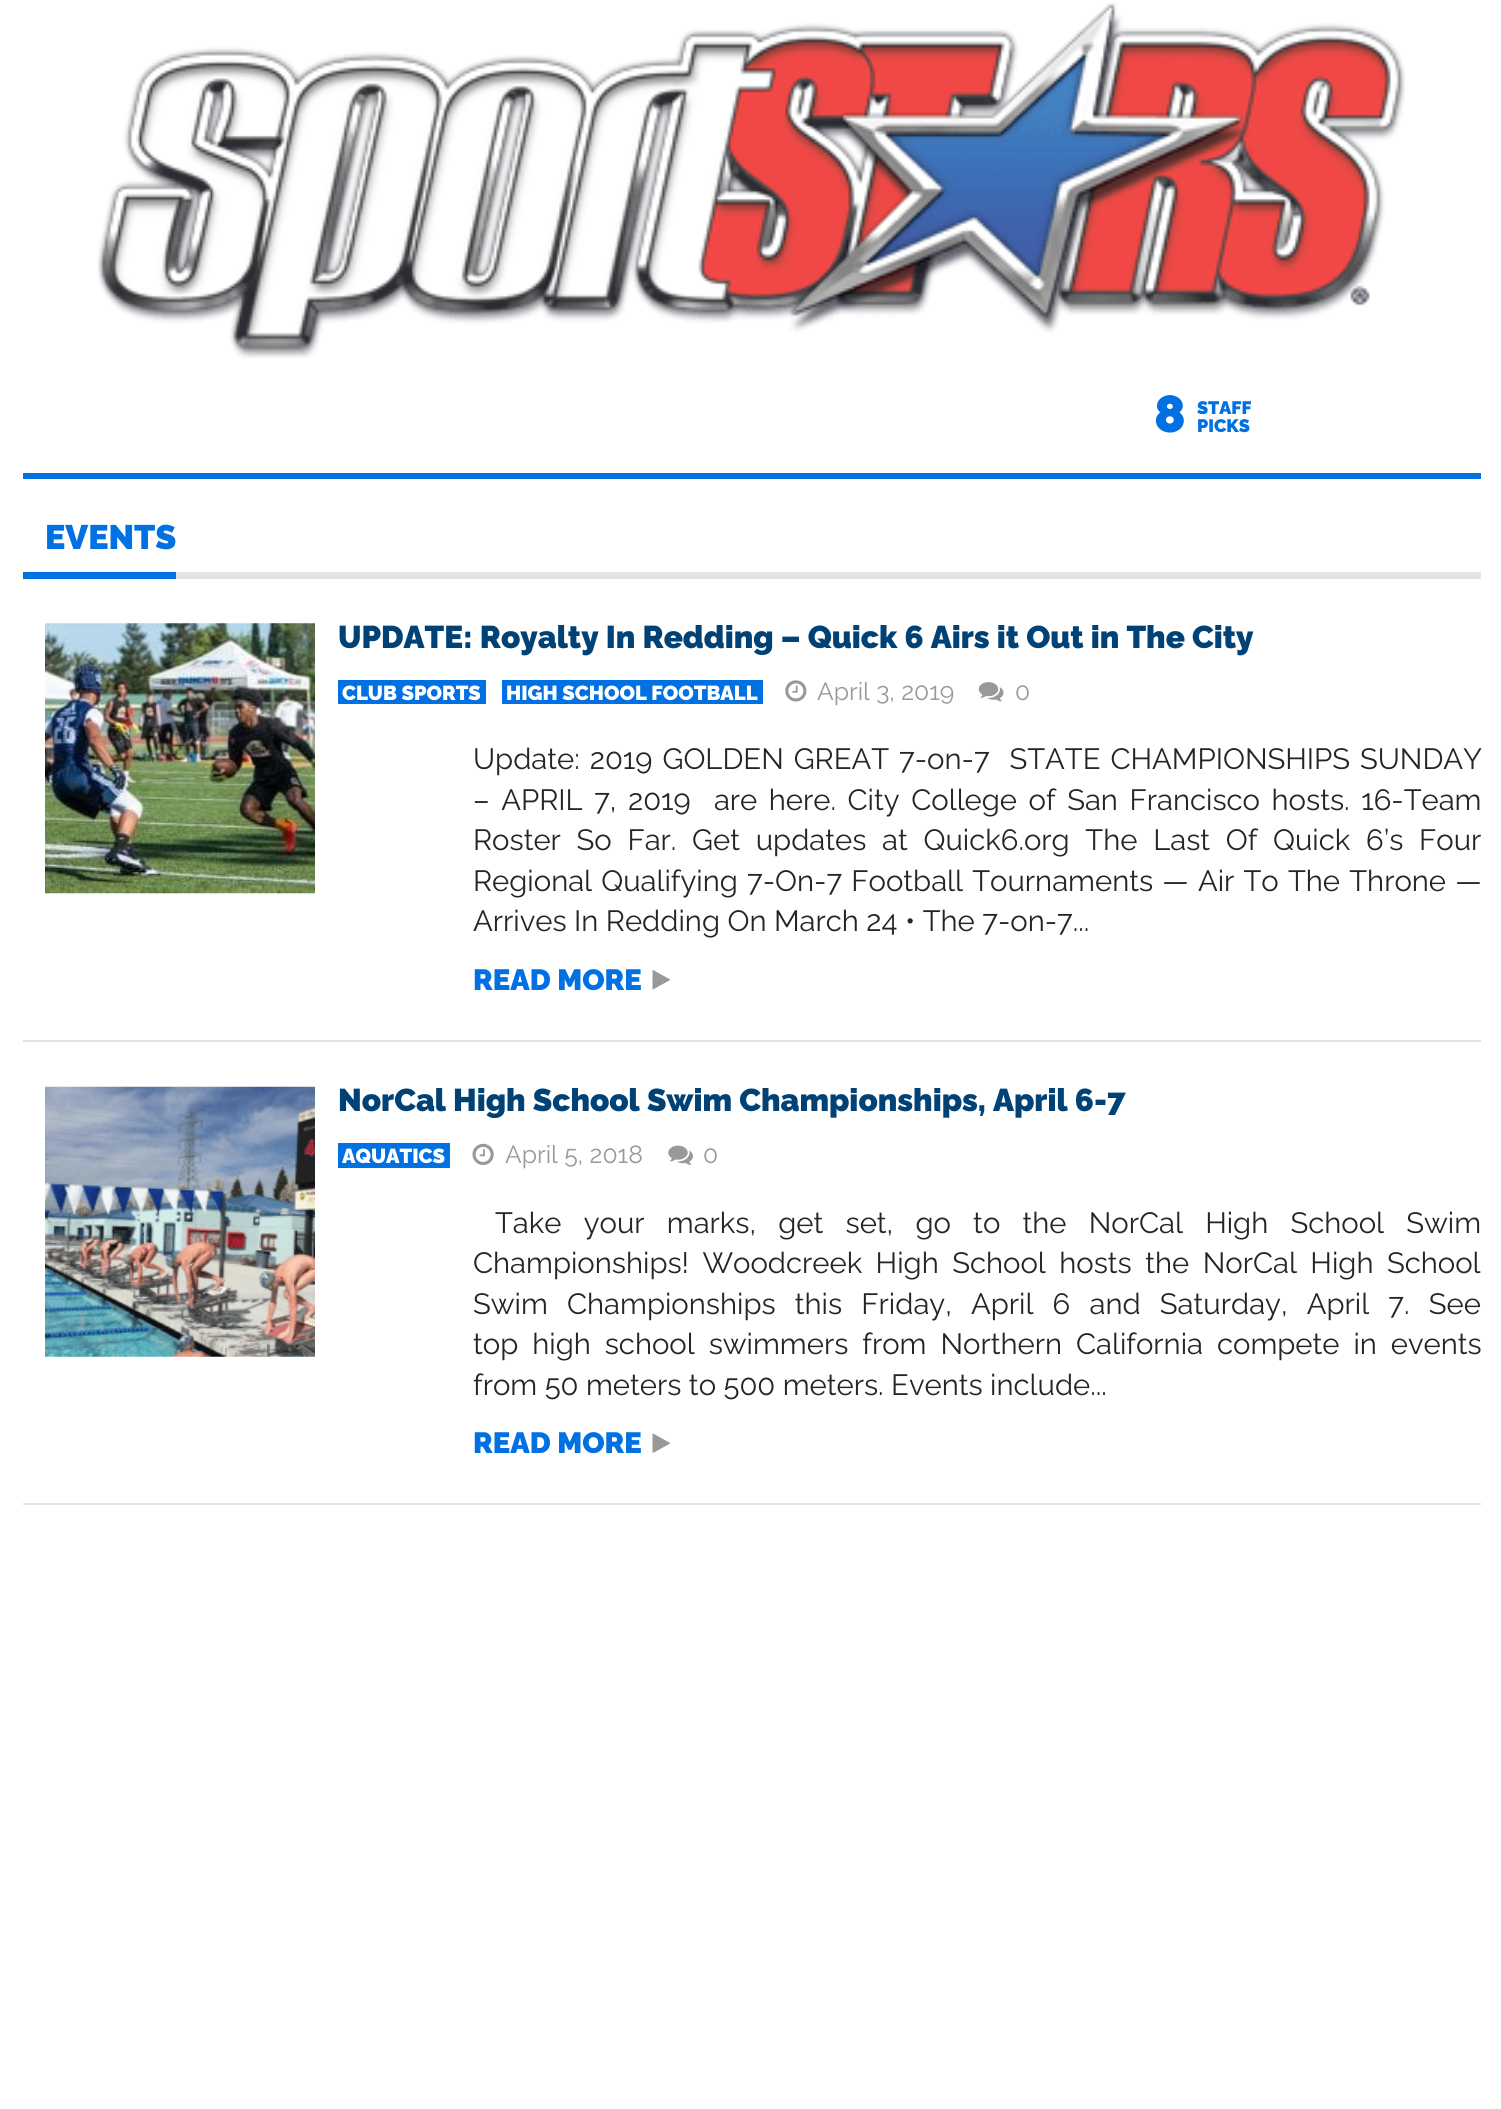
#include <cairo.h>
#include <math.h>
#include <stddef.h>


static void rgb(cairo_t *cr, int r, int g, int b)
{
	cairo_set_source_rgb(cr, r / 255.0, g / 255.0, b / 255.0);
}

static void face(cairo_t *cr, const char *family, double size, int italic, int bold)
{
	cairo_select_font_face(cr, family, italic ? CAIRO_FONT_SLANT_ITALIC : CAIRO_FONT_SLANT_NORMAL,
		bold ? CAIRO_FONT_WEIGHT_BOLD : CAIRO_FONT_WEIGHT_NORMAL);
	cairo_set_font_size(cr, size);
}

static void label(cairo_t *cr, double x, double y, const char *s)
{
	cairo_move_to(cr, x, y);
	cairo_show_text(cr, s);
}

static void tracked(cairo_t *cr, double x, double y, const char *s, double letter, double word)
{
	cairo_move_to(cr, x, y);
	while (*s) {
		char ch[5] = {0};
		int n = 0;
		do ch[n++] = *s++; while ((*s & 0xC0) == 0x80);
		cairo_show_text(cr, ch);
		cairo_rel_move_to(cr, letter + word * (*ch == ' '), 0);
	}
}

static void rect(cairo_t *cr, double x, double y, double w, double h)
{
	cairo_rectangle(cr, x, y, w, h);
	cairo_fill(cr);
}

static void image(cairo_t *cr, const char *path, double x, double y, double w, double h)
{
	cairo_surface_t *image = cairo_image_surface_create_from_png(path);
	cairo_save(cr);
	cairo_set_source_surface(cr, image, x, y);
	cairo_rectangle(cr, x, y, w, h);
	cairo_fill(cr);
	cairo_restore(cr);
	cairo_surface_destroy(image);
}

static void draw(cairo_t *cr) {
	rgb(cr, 255, 255, 255);
	cairo_paint(cr);
	image(cr, "image0.png", 97, 2, 1309, 356);
	rgb(cr, 0, 112, 227);
	cairo_new_path(cr);
	cairo_move_to(cr, 23, 472);
	cairo_line_to(cr, 23, 479);
	cairo_line_to(cr, 1481, 479);
	cairo_line_to(cr, 1481, 369);
	cairo_line_to(cr, 1480, 369);
	cairo_line_to(cr, 1480, 472);
	cairo_close_path(cr);
	cairo_fill(cr);
	rgb(cr, 255, 255, 255);
	rect(cr, 23, 369, 1458, 104);
	face(cr, "Raleway Black", 52, 0, 0);
	rgb(cr, 0, 112, 227);
	label(cr, 1154, 432, "8");
	face(cr, "Raleway Black", 18, 0, 0);
	label(cr, 1197, 414, "STAFF");
	label(cr, 1197, 432, "PICKS");
	rgb(cr, 228, 228, 228);
	rect(cr, 176, 572, 1305, 7);
	rgb(cr, 0, 112, 227);
	rect(cr, 23, 572, 153, 7);
	face(cr, "Raleway Black", 34, 0, 0);
	label(cr, 45, 549, "EVENTS");
	rgb(cr, 228, 228, 228);
	rect(cr, 23, 1040, 1458, 2);
	image(cr, "image1.png", 45, 623, 270, 271);
	face(cr, "Raleway Black", 31.5, 0, 0);
	rgb(cr, 0, 66, 118);
	label(cr, 338, 648, "UPDATE: Royalty In Redding – Quick 6 Airs it Out in The City");
	rgb(cr, 0, 112, 227);
	rect(cr, 338, 680, 148, 24);
	face(cr, "Raleway Black", 20.25, 0, 0);
	rgb(cr, 255, 255, 255);
	label(cr, 342, 700, "CLUB SPORTS");
	rgb(cr, 0, 112, 227);
	rect(cr, 502, 680, 261, 24);
	rgb(cr, 255, 255, 255);
	label(cr, 506, 700, "HIGH SCHOOL FOOTBALL");
	image(cr, "image2.png", 785, 680, 22, 22);
	face(cr, "Raleway", 24.75, 0, 0);
	rgb(cr, 153, 153, 153);
	label(cr, 817, 700, "April 3, 2019");
	image(cr, "image3.png", 978, 682, 26, 20);
	label(cr, 1015, 700, "0");
	face(cr, "Raleway", 29.25, 0, 0);
	rgb(cr, 37, 37, 37);
	tracked(cr, 473, 769, "Update: 2019 GOLDEN GREAT 7-on-7  STATE CHAMPIONSHIPS SUNDAY", 0, 2.5);
	tracked(cr, 473, 810, "– APRIL 7, 2019  are here. City College of San Francisco hosts. 16-Team", 0, 4.1);
	tracked(cr, 473, 850, "Roster So Far. Get updates at Quick6.org The Last Of Quick 6’s Four", 0, 8.25);
	tracked(cr, 473, 891, "Regional Qualifying 7-On-7 Football Tournaments — Air To The Throne —", 0, 1.75);
	label(cr, 473, 931, "Arrives In Redding On March 24 • The 7-on-7...");
	face(cr, "Raleway Black", 29.25, 0, 0);
	rgb(cr, 0, 112, 227);
	label(cr, 473, 990, "READ MORE");
	image(cr, "image4.png", 652, 970, 18, 20);
	rgb(cr, 228, 228, 228);
	rect(cr, 23, 1503, 1458, 2);
	image(cr, "image5.png", 45, 1086, 270, 271);
	face(cr, "Raleway Black", 31.5, 0, 0);
	rgb(cr, 0, 66, 118);
	label(cr, 338, 1111, "NorCal High School Swim Championships, April 6-7");
	rgb(cr, 0, 112, 227);
	rect(cr, 338, 1143, 112, 25);
	face(cr, "Raleway Black", 20.25, 0, 0);
	rgb(cr, 255, 255, 255);
	label(cr, 342, 1163, "AQUATICS");
	image(cr, "image6.png", 472, 1143, 22, 22);
	face(cr, "Raleway", 24.75, 0, 0);
	rgb(cr, 153, 153, 153);
	label(cr, 505, 1163, "April 5, 2018");
	image(cr, "image7.png", 668, 1145, 25, 20);
	label(cr, 703, 1163, "0");
	face(cr, "Raleway", 29.25, 0, 0);
	rgb(cr, 37, 37, 37);
	tracked(cr, 495, 1233, "Take your marks, get set, go to the NorCal High School Swim", 0, 14.75);
	tracked(cr, 473, 1273, "Championships! Woodcreek High School hosts the NorCal High School", 0, 6);
	tracked(cr, 473, 1314, "Swim Championships this Friday, April 6 and Saturday, April 7. See", 0, 11.75);
	tracked(cr, 473, 1354, "top high school swimmers from Northern California compete in events", 0, 6.5);
	label(cr, 473, 1395, "from 50 meters to 500 meters. Events include...");
	face(cr, "Raleway Black", 29.25, 0, 0);
	rgb(cr, 0, 112, 227);
	label(cr, 473, 1453, "READ MORE");
	image(cr, "image8.png", 652, 1433, 18, 20);
}

int main(void) {
	cairo_surface_t *surface = cairo_image_surface_create(CAIRO_FORMAT_RGB24, 1501, 2109);
	cairo_t *cr = cairo_create(surface);
	cairo_font_options_t *options = cairo_font_options_create();
	cairo_font_options_set_hint_metrics(options, CAIRO_HINT_METRICS_OFF);
	cairo_font_options_set_hint_style(options, CAIRO_HINT_STYLE_NONE);
	cairo_set_font_options(cr, options);
	cairo_set_miter_limit(cr, 4);
	draw(cr);
	cairo_surface_write_to_png(surface, "render.png");
	cairo_font_options_destroy(options);
	cairo_destroy(cr);
	cairo_surface_destroy(surface);
	return 0;
}
